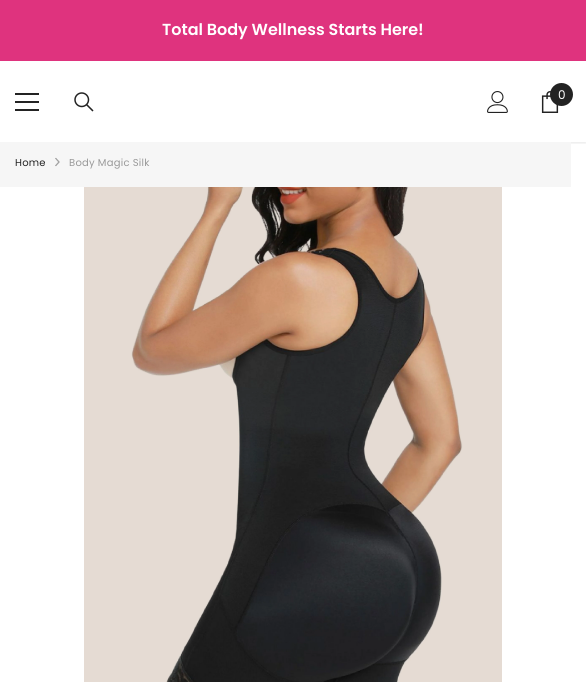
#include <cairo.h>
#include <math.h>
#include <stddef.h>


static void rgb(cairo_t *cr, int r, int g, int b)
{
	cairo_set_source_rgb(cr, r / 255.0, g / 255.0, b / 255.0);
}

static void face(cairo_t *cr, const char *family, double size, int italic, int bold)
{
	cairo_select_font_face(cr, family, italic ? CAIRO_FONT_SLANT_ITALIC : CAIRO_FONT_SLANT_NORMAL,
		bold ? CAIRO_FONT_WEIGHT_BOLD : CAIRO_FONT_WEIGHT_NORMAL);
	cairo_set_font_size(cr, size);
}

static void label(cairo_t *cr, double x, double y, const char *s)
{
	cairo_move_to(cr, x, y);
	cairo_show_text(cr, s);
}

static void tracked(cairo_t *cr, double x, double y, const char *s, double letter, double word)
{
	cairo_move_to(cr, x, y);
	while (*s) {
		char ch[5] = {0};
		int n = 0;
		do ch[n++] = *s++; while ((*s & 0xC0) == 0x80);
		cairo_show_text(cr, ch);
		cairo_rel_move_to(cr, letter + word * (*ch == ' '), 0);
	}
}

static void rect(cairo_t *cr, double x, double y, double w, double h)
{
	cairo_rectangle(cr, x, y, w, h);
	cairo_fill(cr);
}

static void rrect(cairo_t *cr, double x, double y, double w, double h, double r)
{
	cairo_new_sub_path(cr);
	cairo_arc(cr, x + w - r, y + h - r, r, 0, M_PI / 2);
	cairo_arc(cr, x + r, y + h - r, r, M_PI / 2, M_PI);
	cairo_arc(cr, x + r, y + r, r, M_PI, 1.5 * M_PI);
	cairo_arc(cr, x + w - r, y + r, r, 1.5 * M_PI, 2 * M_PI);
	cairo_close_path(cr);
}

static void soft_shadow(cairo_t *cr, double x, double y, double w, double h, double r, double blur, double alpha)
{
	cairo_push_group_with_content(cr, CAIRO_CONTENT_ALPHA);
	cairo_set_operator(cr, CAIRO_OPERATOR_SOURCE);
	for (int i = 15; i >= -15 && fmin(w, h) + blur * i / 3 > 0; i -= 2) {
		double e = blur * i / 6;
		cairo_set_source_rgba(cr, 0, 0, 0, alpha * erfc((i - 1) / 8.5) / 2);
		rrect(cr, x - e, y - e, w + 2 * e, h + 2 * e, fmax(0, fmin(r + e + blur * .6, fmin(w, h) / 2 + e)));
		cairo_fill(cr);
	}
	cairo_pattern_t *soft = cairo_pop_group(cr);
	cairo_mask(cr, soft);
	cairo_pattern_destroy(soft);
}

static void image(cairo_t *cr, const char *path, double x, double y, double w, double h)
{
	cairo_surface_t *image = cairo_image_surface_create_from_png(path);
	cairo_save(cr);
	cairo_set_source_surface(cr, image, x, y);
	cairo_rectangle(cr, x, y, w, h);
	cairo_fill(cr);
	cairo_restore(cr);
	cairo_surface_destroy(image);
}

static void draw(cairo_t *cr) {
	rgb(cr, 255, 255, 255);
	cairo_paint(cr);
	rgb(cr, 223, 51, 126);
	rect(cr, 0, 0, 586, 61);
	face(cr, "Poppins SemiBold", 16, 0, 0);
	rgb(cr, 255, 255, 255);
	label(cr, 162, 35, "Total Body Wellness Starts Here!");
	cairo_save(cr);
	cairo_rectangle(cr, 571, 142, 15, 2);
	cairo_clip(cr);
	rgb(cr, 0, 0, 0);
	soft_shadow(cr, 0, 62, 586, 81, 0, 1.5, 0.1);
	cairo_restore(cr);
	rgb(cr, 35, 35, 35);
	rect(cr, 15, 101, 24, 2);
	rect(cr, 15, 93, 24, 2);
	rect(cr, 15, 109, 24, 2);
	image(cr, "image0.png", 74, 92, 20, 20);
	image(cr, "image1.png", 487, 91, 21, 22);
	image(cr, "image2.png", 541, 91, 18, 22);
	cairo_arc(cr, 561.5, 94.5, 11.5, 0, 2 * M_PI);
	cairo_fill(cr);
	face(cr, "Poppins", 12, 0, 0);
	rgb(cr, 255, 255, 255);
	label(cr, 558, 99, "0");
	rgb(cr, 246, 246, 246);
	rect(cr, 0, 142, 571, 45);
	face(cr, "Poppins", 10, 0, 0);
	rgb(cr, 35, 35, 35);
	tracked(cr, 15, 166, "Home", 0.25, 0);
	image(cr, "image3.png", 55, 157, 5, 10);
	rgb(cr, 153, 153, 153);
	tracked(cr, 69, 166, "Body Magic Silk", 0.25, 0);
	image(cr, "image4.png", 84, 187, 418, 495);
}

int main(void) {
	cairo_surface_t *surface = cairo_image_surface_create(CAIRO_FORMAT_RGB24, 586, 682);
	cairo_t *cr = cairo_create(surface);
	cairo_font_options_t *options = cairo_font_options_create();
	cairo_font_options_set_hint_metrics(options, CAIRO_HINT_METRICS_OFF);
	cairo_font_options_set_hint_style(options, CAIRO_HINT_STYLE_NONE);
	cairo_set_font_options(cr, options);
	cairo_set_miter_limit(cr, 4);
	draw(cr);
	cairo_surface_write_to_png(surface, "render.png");
	cairo_font_options_destroy(options);
	cairo_destroy(cr);
	cairo_surface_destroy(surface);
	return 0;
}
